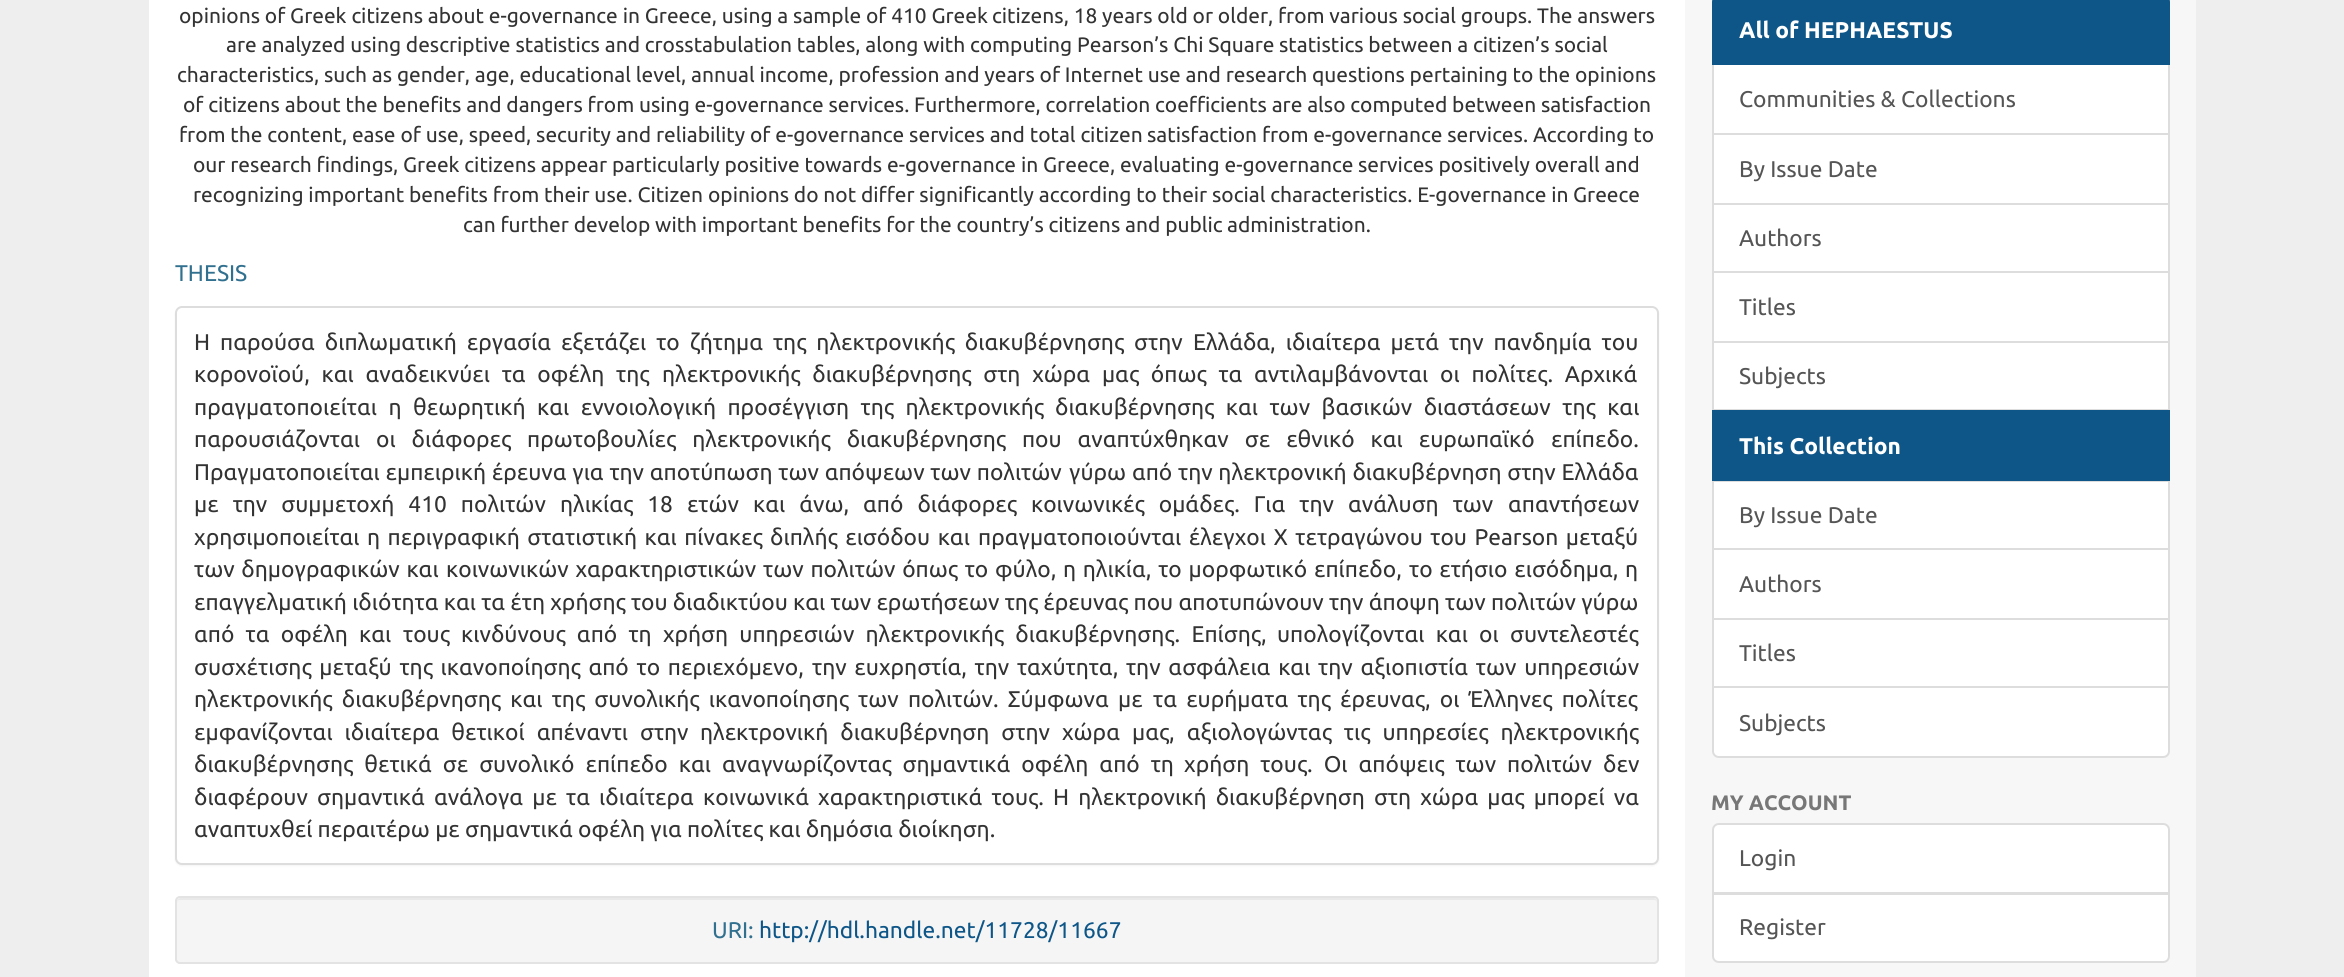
#include <cairo.h>
#include <math.h>
#include <stddef.h>


static void rgb(cairo_t *cr, int r, int g, int b)
{
	cairo_set_source_rgb(cr, r / 255.0, g / 255.0, b / 255.0);
}

static void face(cairo_t *cr, const char *family, double size, int italic, int bold)
{
	cairo_select_font_face(cr, family, italic ? CAIRO_FONT_SLANT_ITALIC : CAIRO_FONT_SLANT_NORMAL,
		bold ? CAIRO_FONT_WEIGHT_BOLD : CAIRO_FONT_WEIGHT_NORMAL);
	cairo_set_font_size(cr, size);
}

static void label(cairo_t *cr, double x, double y, const char *s)
{
	cairo_move_to(cr, x, y);
	cairo_show_text(cr, s);
}

static void tracked(cairo_t *cr, double x, double y, const char *s, double letter, double word)
{
	cairo_move_to(cr, x, y);
	while (*s) {
		char ch[5] = {0};
		int n = 0;
		do ch[n++] = *s++; while ((*s & 0xC0) == 0x80);
		cairo_show_text(cr, ch);
		cairo_rel_move_to(cr, letter + word * (*ch == ' '), 0);
	}
}

static void rect(cairo_t *cr, double x, double y, double w, double h)
{
	cairo_rectangle(cr, x, y, w, h);
	cairo_fill(cr);
}

static void rrect(cairo_t *cr, double x, double y, double w, double h, double r)
{
	cairo_new_sub_path(cr);
	cairo_arc(cr, x + w - r, y + h - r, r, 0, M_PI / 2);
	cairo_arc(cr, x + r, y + h - r, r, M_PI / 2, M_PI);
	cairo_arc(cr, x + r, y + r, r, M_PI, 1.5 * M_PI);
	cairo_arc(cr, x + w - r, y + r, r, 1.5 * M_PI, 2 * M_PI);
	cairo_close_path(cr);
}

static void soft_shadow(cairo_t *cr, double x, double y, double w, double h, double r, double blur, double alpha)
{
	cairo_push_group_with_content(cr, CAIRO_CONTENT_ALPHA);
	cairo_set_operator(cr, CAIRO_OPERATOR_SOURCE);
	for (int i = 15; i >= -15 && fmin(w, h) + blur * i / 3 > 0; i -= 2) {
		double e = blur * i / 6;
		cairo_set_source_rgba(cr, 0, 0, 0, alpha * erfc((i - 1) / 8.5) / 2);
		rrect(cr, x - e, y - e, w + 2 * e, h + 2 * e, fmax(0, fmin(r + e + blur * .6, fmin(w, h) / 2 + e)));
		cairo_fill(cr);
	}
	cairo_pattern_t *soft = cairo_pop_group(cr);
	cairo_mask(cr, soft);
	cairo_pattern_destroy(soft);
}

static void draw(cairo_t *cr) {
	rgb(cr, 238, 238, 238);
	cairo_paint(cr);
	rgb(cr, 247, 247, 247);
	rect(cr, 1685, 0, 511, 977);
	rgb(cr, 255, 255, 255);
	rect(cr, 149, 0, 1536, 977);
	face(cr, "Ubuntu", 20.93, 0, 0);
	rgb(cr, 51, 51, 51);
	label(cr, 179, 23, "opinions of Greek citizens about e-governance in Greece, using a sample of 410 Greek");
	label(cr, 992, 23, "citizens, 18 years old or older, from various social groups. The answers");
	label(cr, 226, 52, "are analyzed using descriptive statistics and crosstabulation tables, along with computing Pearson’s Chi Square");
	label(cr, 1279, 52, "statistics between a citizen’s social");
	label(cr, 177, 82, "characteristics, such as gender, age, educational level,");
	label(cr, 691, 82, "annual income, profession and years of Internet use and research questions pertaining to the");
	label(cr, 1575, 82, "opinions");
	label(cr, 183, 112, "of citizens about the benefits and dangers from using e-governance services.");
	label(cr, 914, 112, "Furthermore, correlation coefficients are also computed between satisfaction");
	label(cr, 179, 142, "from the content, ease of use, speed, security and reliability of e-governance services and total citizen");
	label(cr, 1147, 142, "satisfaction from e-governance services. According to");
	label(cr, 193, 172, "our research findings, Greek citizens appear particularly positive towards e-governance in Greece, evaluating e-governance");
	label(cr, 1358, 172, "services positively overall and");
	label(cr, 193, 202, "recognizing important benefits from their use. Citizen");
	label(cr, 708, 202, "opinions do not differ significantly according to their social characteristics. E-governance in");
	label(cr, 1573, 202, "Greece");
	label(cr, 463, 232, "can further develop with important benefits for the country’s citizens and public");
	label(cr, 1227, 232, "administration.");
	face(cr, "Ubuntu", 22.75, 0, 0);
	rgb(cr, 49, 112, 143);
	label(cr, 175, 281, "THESIS");
	rgb(cr, 0, 0, 0);
	soft_shadow(cr, 175, 308, 1484, 558, 7, 1, 0.05);
	rgb(cr, 255, 255, 255);
	rrect(cr, 176, 307, 1482, 557, 6);
	cairo_fill_preserve(cr);
	rgb(cr, 221, 221, 221);
	cairo_stroke(cr);
	rgb(cr, 51, 51, 51);
	tracked(cr, 194, 350, "Η παρούσα διπλωματική εργασία εξετάζει το ζήτημα της ηλεκτρονικής διακυβέρνησης στην", 0, 4.75);
	tracked(cr, 1193, 350, "Ελλάδα, ιδιαίτερα μετά την πανδημία του", 0, 4.75);
	tracked(cr, 194, 382, "κορονοϊού, και αναδεικνύει τα οφέλη της", 0, 6.5);
	tracked(cr, 662, 382, "ηλεκτρονικής διακυβέρνησης στη χώρα μας όπως τα αντιλαμβάνονται οι πολίτες. Αρχικά", 0, 6.5);
	tracked(cr, 194, 415, "πραγματοποιείται η θεωρητική και εννοιολογική προσέγγιση της ηλεκτρονικής", 0, 6.25);
	tracked(cr, 1055, 415, "διακυβέρνησης και των βασικών διαστάσεων της και", 0, 6.25);
	tracked(cr, 194, 447, "παρουσιάζονται οι διάφορες", 0, 10.75);
	tracked(cr, 527, 447, "πρωτοβουλίες ηλεκτρονικής διακυβέρνησης που αναπτύχθηκαν σε εθνικό και ευρωπαϊκό", 0, 10.75);
	label(cr, 1551, 447, "επίπεδο.");
	tracked(cr, 194, 480, "Πραγματοποιείται εμπειρική έρευνα για την αποτύπωση των απόψεων των πολιτών", 0, 0.5);
	tracked(cr, 1069, 480, "γύρω από την ηλεκτρονική διακυβέρνηση στην Ελλάδα", 0, 0.5);
	tracked(cr, 194, 512, "με την συμμετοχή 410 πολιτών", 0, 8.75);
	tracked(cr, 560, 512, "ηλικίας 18 ετών και άνω, από διάφορες κοινωνικές ομάδες. Για την ανάλυση των", 0, 8.75);
	label(cr, 1508, 512, "απαντήσεων");
	tracked(cr, 194, 545, "χρησιμοποιείται η περιγραφική στατιστική και πίνακες διπλής εισόδου και", 0, 2.25);
	tracked(cr, 978, 545, "πραγματοποιούνται έλεγχοι Χ τετραγώνου του Pearson μεταξύ", 0, 2.25);
	tracked(cr, 194, 577, "των δημογραφικών και", 0, 1.5);
	tracked(cr, 446, 577, "κοινωνικών χαρακτηριστικών των πολιτών όπως το φύλο, η ηλικία, το μορφωτικό επίπεδο,", 0, 1.5);
	tracked(cr, 1409, 577, "το ετήσιο εισόδημα, η", 0, 1.5);
	label(cr, 194, 610, "επαγγελματική ιδιότητα και τα έτη χρήσης του διαδικτύου και των ερωτήσεων της έρευνας που αποτυπώνουν την άποψη των πολιτών γύρω");
	tracked(cr, 194, 642, "από τα οφέλη και", 0, 6);
	tracked(cr, 403, 642, "τους κινδύνους από τη χρήση υπηρεσιών ηλεκτρονικής διακυβέρνησης. Επίσης,", 0, 6);
	tracked(cr, 1277, 642, "υπολογίζονται και οι συντελεστές", 0, 6);
	tracked(cr, 194, 675, "συσχέτισης μεταξύ της ικανοποίησης από το περιεχόμενο,", 0, 2.5);
	tracked(cr, 812, 675, "την ευχρηστία, την ταχύτητα, την ασφάλεια και την αξιοπιστία των υπηρεσιών", 0, 2.5);
	tracked(cr, 194, 707, "ηλεκτρονικής διακυβέρνησης και της συνολικής ικανοποίησης των πολιτών. Σύμφωνα με", 0, 4);
	tracked(cr, 1153, 707, "τα ευρήματα της έρευνας, οι Έλληνες πολίτες", 0, 4);
	tracked(cr, 194, 740, "εμφανίζονται ιδιαίτερα θετικοί απέναντι στην", 0, 6.75);
	tracked(cr, 700, 740, "ηλεκτρονική διακυβέρνηση στην χώρα μας, αξιολογώντας τις υπηρεσίες ηλεκτρονικής", 0, 6.75);
	tracked(cr, 194, 772, "διακυβέρνησης θετικά σε συνολικό επίπεδο και αναγνωρίζοντας σημαντικά οφέλη από τη", 0, 5.75);
	tracked(cr, 1184, 772, "χρήση τους. Οι απόψεις των πολιτών δεν", 0, 5.75);
	tracked(cr, 194, 805, "διαφέρουν σημαντικά ανάλογα με τα ιδιαίτερα", 0, 3.9);
	tracked(cr, 703, 805, "κοινωνικά χαρακτηριστικά τους. Η ηλεκτρονική διακυβέρνηση στη χώρα μας μπορεί να", 0, 3.9);
	label(cr, 194, 837, "αναπτυχθεί περαιτέρω με σημαντικά οφέλη για πολίτες και δημόσια διοίκηση.");
	rgb(cr, 245, 245, 245);
	rrect(cr, 175, 896, 1484, 68, 5);
	cairo_fill(cr);
	rgb(cr, 233, 233, 233);
	cairo_new_path(cr);
	cairo_move_to(cr, 180, 900);
	cairo_line_to(cr, 1654, 900);
	cairo_curve_to(cr, 1656, 900, 1657, 901, 1657, 903);
	cairo_line_to(cr, 1657, 902);
	cairo_curve_to(cr, 1657, 900, 1655, 898, 1653, 898);
	cairo_line_to(cr, 181, 898);
	cairo_curve_to(cr, 179, 898, 177, 900, 177, 902);
	cairo_line_to(cr, 177, 903);
	cairo_curve_to(cr, 177, 901, 178, 900, 180, 900);
	cairo_close_path(cr);
	cairo_fill(cr);
	rrect(cr, 176, 897, 1482, 66, 4);
	rgb(cr, 227, 227, 227);
	cairo_stroke(cr);
	rgb(cr, 49, 112, 143);
	label(cr, 712, 938, "URI:");
	rgb(cr, 14, 86, 136);
	label(cr, 759, 938, "http://hdl.handle.net/11728/11667");
	rgb(cr, 255, 255, 255);
	cairo_rectangle(cr, 1713, 64, 456, 70);
	cairo_fill_preserve(cr);
	rgb(cr, 221, 221, 221);
	cairo_stroke(cr);
	rgb(cr, 14, 86, 136);
	cairo_new_path(cr);
	cairo_move_to(cr, 1719, -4);
	cairo_line_to(cr, 2163, -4);
	cairo_curve_to(cr, 2166.5, -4, 2169, -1.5, 2169, 2);
	cairo_line_to(cr, 2169, 64);
	cairo_line_to(cr, 1713, 64);
	cairo_line_to(cr, 1713, 2);
	cairo_curve_to(cr, 1713, -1.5, 1715.5, -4, 1719, -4);
	cairo_close_path(cr);
	cairo_fill_preserve(cr);
	cairo_stroke(cr);
	face(cr, "Ubuntu", 22.75, 0, 1);
	rgb(cr, 255, 255, 255);
	label(cr, 1739, 38, "All of HEPHAESTUS");
	face(cr, "Ubuntu", 22.75, 0, 0);
	rgb(cr, 85, 85, 85);
	label(cr, 1739, 107, "Communities & Collections");
	rgb(cr, 255, 255, 255);
	cairo_rectangle(cr, 1713, 134, 456, 70);
	cairo_fill_preserve(cr);
	rgb(cr, 221, 221, 221);
	cairo_stroke(cr);
	rgb(cr, 85, 85, 85);
	label(cr, 1739, 177, "By Issue Date");
	rgb(cr, 255, 255, 255);
	cairo_rectangle(cr, 1713, 204, 456, 68);
	cairo_fill_preserve(cr);
	rgb(cr, 221, 221, 221);
	cairo_stroke(cr);
	rgb(cr, 85, 85, 85);
	label(cr, 1739, 246, "Authors");
	rgb(cr, 255, 255, 255);
	cairo_rectangle(cr, 1713, 272, 456, 70);
	cairo_fill_preserve(cr);
	rgb(cr, 221, 221, 221);
	cairo_stroke(cr);
	rgb(cr, 85, 85, 85);
	label(cr, 1739, 315, "Titles");
	rgb(cr, 255, 255, 255);
	cairo_rectangle(cr, 1713, 342, 456, 68);
	cairo_fill_preserve(cr);
	rgb(cr, 221, 221, 221);
	cairo_stroke(cr);
	rgb(cr, 85, 85, 85);
	label(cr, 1739, 384, "Subjects");
	rgb(cr, 255, 255, 255);
	cairo_rectangle(cr, 1713, 481, 456, 68);
	cairo_fill_preserve(cr);
	rgb(cr, 221, 221, 221);
	cairo_stroke(cr);
	rgb(cr, 14, 86, 136);
	rect(cr, 1712, 410, 458, 71);
	face(cr, "Ubuntu", 22.75, 0, 1);
	rgb(cr, 255, 255, 255);
	label(cr, 1739, 454, "This Collection");
	face(cr, "Ubuntu", 22.75, 0, 0);
	rgb(cr, 85, 85, 85);
	label(cr, 1739, 523, "By Issue Date");
	rgb(cr, 255, 255, 255);
	cairo_rectangle(cr, 1713, 549, 456, 70);
	cairo_fill_preserve(cr);
	rgb(cr, 221, 221, 221);
	cairo_stroke(cr);
	rgb(cr, 85, 85, 85);
	label(cr, 1739, 592, "Authors");
	rgb(cr, 255, 255, 255);
	cairo_rectangle(cr, 1713, 619, 456, 68);
	cairo_fill_preserve(cr);
	rgb(cr, 221, 221, 221);
	cairo_stroke(cr);
	rgb(cr, 85, 85, 85);
	label(cr, 1739, 661, "Titles");
	rgb(cr, 255, 255, 255);
	cairo_new_path(cr);
	cairo_move_to(cr, 1713, 687);
	cairo_line_to(cr, 2169, 687);
	cairo_line_to(cr, 2169, 751);
	cairo_curve_to(cr, 2169, 754.5, 2166.5, 757, 2163, 757);
	cairo_line_to(cr, 1719, 757);
	cairo_curve_to(cr, 1715.5, 757, 1713, 754.5, 1713, 751);
	cairo_close_path(cr);
	cairo_fill_preserve(cr);
	rgb(cr, 221, 221, 221);
	cairo_stroke(cr);
	rgb(cr, 85, 85, 85);
	label(cr, 1739, 731, "Subjects");
	face(cr, "Ubuntu", 21, 0, 1);
	rgb(cr, 119, 119, 119);
	label(cr, 1711, 810, "MY ACCOUNT");
	rgb(cr, 255, 255, 255);
	cairo_new_path(cr);
	cairo_move_to(cr, 1719, 824);
	cairo_line_to(cr, 2163, 824);
	cairo_curve_to(cr, 2166.5, 824, 2169, 826.5, 2169, 830);
	cairo_line_to(cr, 2169, 893);
	cairo_line_to(cr, 1713, 893);
	cairo_line_to(cr, 1713, 830);
	cairo_curve_to(cr, 1713, 826.5, 1715.5, 824, 1719, 824);
	cairo_close_path(cr);
	cairo_fill_preserve(cr);
	rgb(cr, 221, 221, 221);
	cairo_stroke(cr);
	face(cr, "Ubuntu", 22.75, 0, 0);
	rgb(cr, 85, 85, 85);
	label(cr, 1739, 866, "Login");
	rgb(cr, 255, 255, 255);
	cairo_new_path(cr);
	cairo_move_to(cr, 1713, 894);
	cairo_line_to(cr, 2169, 894);
	cairo_line_to(cr, 2169, 956);
	cairo_curve_to(cr, 2169, 959.5, 2166.5, 962, 2163, 962);
	cairo_line_to(cr, 1719, 962);
	cairo_curve_to(cr, 1715.5, 962, 1713, 959.5, 1713, 956);
	cairo_close_path(cr);
	cairo_fill_preserve(cr);
	rgb(cr, 221, 221, 221);
	cairo_stroke(cr);
	rgb(cr, 85, 85, 85);
	label(cr, 1739, 935, "Register");
}

int main(void) {
	cairo_surface_t *surface = cairo_image_surface_create(CAIRO_FORMAT_RGB24, 2344, 977);
	cairo_t *cr = cairo_create(surface);
	cairo_font_options_t *options = cairo_font_options_create();
	cairo_font_options_set_hint_metrics(options, CAIRO_HINT_METRICS_OFF);
	cairo_font_options_set_hint_style(options, CAIRO_HINT_STYLE_NONE);
	cairo_set_font_options(cr, options);
	cairo_set_miter_limit(cr, 4);
	draw(cr);
	cairo_surface_write_to_png(surface, "render.png");
	cairo_font_options_destroy(options);
	cairo_destroy(cr);
	cairo_surface_destroy(surface);
	return 0;
}
